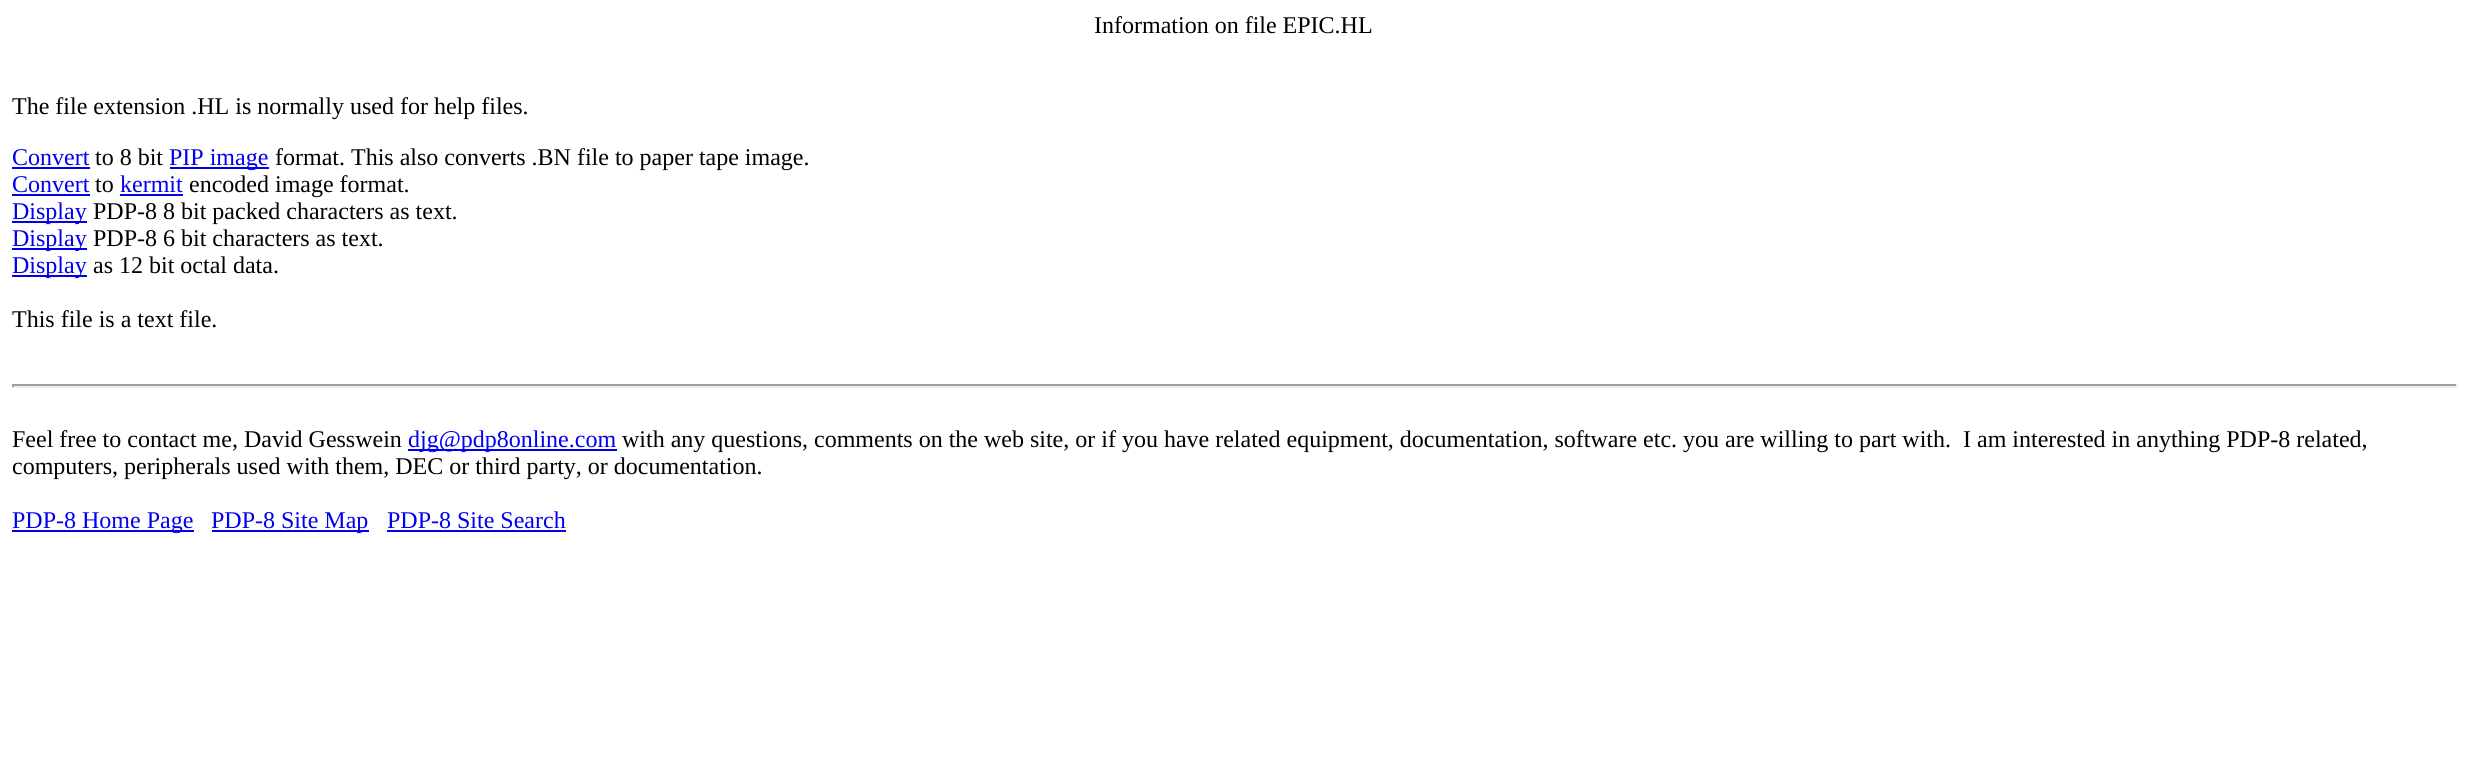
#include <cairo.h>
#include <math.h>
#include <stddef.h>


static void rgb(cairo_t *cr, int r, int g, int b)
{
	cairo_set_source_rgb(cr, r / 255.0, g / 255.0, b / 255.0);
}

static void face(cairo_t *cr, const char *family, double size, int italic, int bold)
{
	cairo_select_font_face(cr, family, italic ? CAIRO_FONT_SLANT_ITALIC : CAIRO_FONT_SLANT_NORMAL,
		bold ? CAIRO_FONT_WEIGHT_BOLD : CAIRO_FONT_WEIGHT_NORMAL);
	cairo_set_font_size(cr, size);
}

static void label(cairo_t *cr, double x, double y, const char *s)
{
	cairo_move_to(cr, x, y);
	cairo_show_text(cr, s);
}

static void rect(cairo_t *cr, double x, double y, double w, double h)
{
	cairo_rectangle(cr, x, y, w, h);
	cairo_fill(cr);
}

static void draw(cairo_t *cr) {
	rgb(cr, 255, 255, 255);
	cairo_paint(cr);
	face(cr, "Liberation Serif", 24, 0, 0);
	rgb(cr, 0, 0, 0);
	label(cr, 1094, 33, "Information on file EPIC.HL");
	label(cr, 12, 114, "The file extension .HL is normally used for help files.");
	rgb(cr, 0, 0, 238);
	label(cr, 12, 165, "Convert");
	rect(cr, 12, 167, 78, 2);
	rgb(cr, 0, 0, 0);
	label(cr, 95, 165, "to 8 bit");
	rgb(cr, 0, 0, 238);
	rect(cr, 170, 167, 99, 2);
	label(cr, 169, 165, "PIP image");
	rgb(cr, 0, 0, 0);
	label(cr, 275, 165, "format. This also converts .BN file to paper tape image.");
	rgb(cr, 0, 0, 238);
	label(cr, 12, 192, "Convert");
	rect(cr, 12, 194, 78, 2);
	rgb(cr, 0, 0, 0);
	label(cr, 95, 192, "to");
	rgb(cr, 0, 0, 238);
	label(cr, 120, 192, "kermit");
	rect(cr, 120, 194, 63, 2);
	rgb(cr, 0, 0, 0);
	label(cr, 189, 192, "encoded image format.");
	rgb(cr, 0, 0, 238);
	rect(cr, 12, 221, 75, 2);
	label(cr, 12, 219, "Display");
	rgb(cr, 0, 0, 0);
	label(cr, 93, 219, "PDP-8 8 bit packed characters as text.");
	rgb(cr, 0, 0, 238);
	rect(cr, 12, 248, 75, 2);
	label(cr, 12, 246, "Display");
	rgb(cr, 0, 0, 0);
	label(cr, 93, 246, "PDP-8 6 bit characters as text.");
	rgb(cr, 0, 0, 238);
	rect(cr, 12, 275, 75, 2);
	label(cr, 12, 273, "Display");
	rgb(cr, 0, 0, 0);
	label(cr, 93, 273, "as 12 bit octal data.");
	label(cr, 12, 327, "This file is a text file.");
	rgb(cr, 159, 159, 159);
	rect(cr, 12, 384, 2445, 2);
	rgb(cr, 238, 238, 238);
	rect(cr, 2456, 384, 2, 3);
	rect(cr, 12, 386, 2445, 2);
	rgb(cr, 159, 159, 159);
	rect(cr, 12, 384, 2, 3);
	rgb(cr, 0, 0, 0);
	label(cr, 12, 447, "Feel free to contact me, David Gesswein");
	rgb(cr, 0, 0, 238);
	rect(cr, 408, 449, 209, 2);
	label(cr, 408, 447, "djg@pdp8online.com");
	rgb(cr, 0, 0, 0);
	label(cr, 622, 447, "with any questions, comments on the web site, or if you have related equipment, documentation, software etc. you are willing to part with.  I am interested in anything PDP-8 related,");
	label(cr, 12, 474, "computers, peripherals used with them, DEC or third party, or documentation.");
	rgb(cr, 0, 0, 238);
	rect(cr, 12, 530, 182, 2);
	label(cr, 12, 528, "PDP-8 Home Page");
	rect(cr, 212, 530, 157, 2);
	label(cr, 211, 528, "PDP-8 Site Map");
	label(cr, 387, 528, "PDP-8 Site Search");
	rect(cr, 387, 530, 179, 2);
}

int main(void) {
	cairo_surface_t *surface = cairo_image_surface_create(CAIRO_FORMAT_RGB24, 2466, 784);
	cairo_t *cr = cairo_create(surface);
	cairo_font_options_t *options = cairo_font_options_create();
	cairo_font_options_set_hint_metrics(options, CAIRO_HINT_METRICS_OFF);
	cairo_font_options_set_hint_style(options, CAIRO_HINT_STYLE_NONE);
	cairo_set_font_options(cr, options);
	cairo_set_miter_limit(cr, 4);
	draw(cr);
	cairo_surface_write_to_png(surface, "render.png");
	cairo_font_options_destroy(options);
	cairo_destroy(cr);
	cairo_surface_destroy(surface);
	return 0;
}
